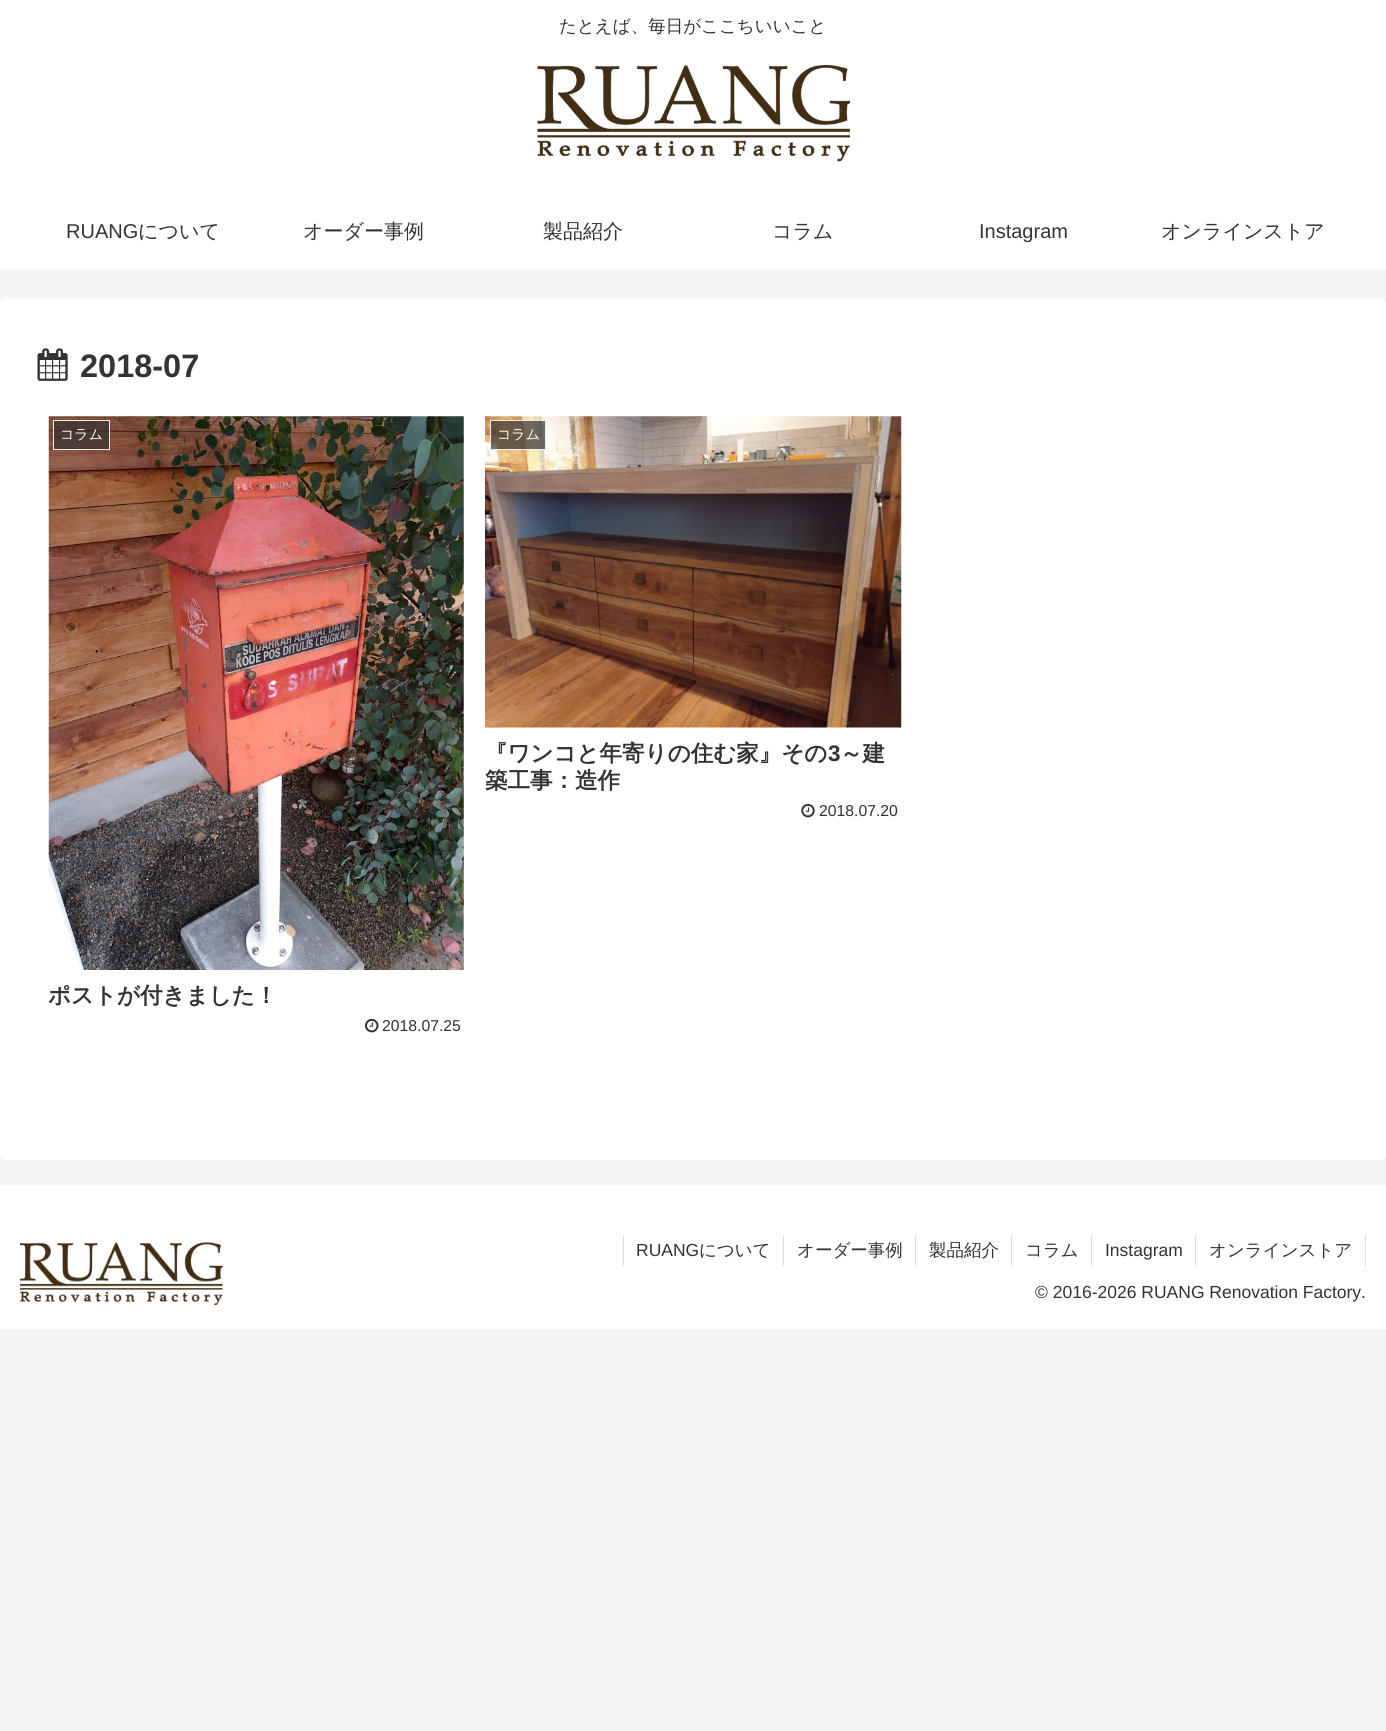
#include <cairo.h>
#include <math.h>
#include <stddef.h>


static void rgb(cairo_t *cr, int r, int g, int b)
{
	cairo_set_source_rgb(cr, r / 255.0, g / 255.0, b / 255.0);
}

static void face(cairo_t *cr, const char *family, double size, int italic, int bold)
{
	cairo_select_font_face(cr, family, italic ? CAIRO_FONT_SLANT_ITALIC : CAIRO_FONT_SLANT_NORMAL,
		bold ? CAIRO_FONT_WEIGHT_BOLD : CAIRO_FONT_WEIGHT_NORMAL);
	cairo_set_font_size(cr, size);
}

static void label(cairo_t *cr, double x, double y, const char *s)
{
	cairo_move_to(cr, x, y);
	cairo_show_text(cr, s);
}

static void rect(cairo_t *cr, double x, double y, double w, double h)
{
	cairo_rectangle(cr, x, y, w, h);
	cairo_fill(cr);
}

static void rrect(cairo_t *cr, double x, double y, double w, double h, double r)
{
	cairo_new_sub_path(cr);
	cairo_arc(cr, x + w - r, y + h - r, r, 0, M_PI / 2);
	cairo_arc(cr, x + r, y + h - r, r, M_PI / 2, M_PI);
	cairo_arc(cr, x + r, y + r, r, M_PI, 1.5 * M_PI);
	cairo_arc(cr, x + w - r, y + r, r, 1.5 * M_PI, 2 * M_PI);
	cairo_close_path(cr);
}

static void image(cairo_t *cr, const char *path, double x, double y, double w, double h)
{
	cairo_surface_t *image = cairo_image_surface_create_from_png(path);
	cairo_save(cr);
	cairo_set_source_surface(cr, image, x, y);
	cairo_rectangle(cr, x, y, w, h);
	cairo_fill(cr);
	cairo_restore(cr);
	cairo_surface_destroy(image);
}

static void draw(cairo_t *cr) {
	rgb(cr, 244, 245, 247);
	cairo_paint(cr);
	rgb(cr, 255, 255, 255);
	rect(cr, 0, 0, 1386, 269);
	face(cr, "WenQuanYi Zen Hei Medium", 17.5, 0, 0);
	rgb(cr, 51, 51, 51);
	label(cr, 559, 32, "たとえば、毎日がここちいいこと");
	image(cr, "image0.png", 537, 65, 313, 97);
	face(cr, "Liberation Sans", 20, 0, 0);
	label(cr, 66, 238, "RUANG");
	face(cr, "WenQuanYi Zen Hei Medium", 20, 0, 0);
	label(cr, 138, 238, "について");
	label(cr, 303, 238, "オーダー事例");
	label(cr, 543, 238, "製品紹介");
	label(cr, 772, 238, "コラム");
	face(cr, "Liberation Sans", 20, 0, 0);
	label(cr, 979, 238, "Instagram");
	face(cr, "WenQuanYi Zen Hei Medium", 20, 0, 0);
	label(cr, 1161, 238, "オンラインストア");
	rgb(cr, 255, 255, 255);
	rrect(cr, 0, 299, 1386, 861, 5);
	cairo_fill(cr);
	image(cr, "image1.png", 37, 348, 31, 33);
	face(cr, "Liberation Sans", 32.5, 0, 1);
	rgb(cr, 51, 51, 51);
	label(cr, 80, 377, "2018-07");
	image(cr, "image2.png", 48, 416, 416, 554);
	cairo_set_source_rgba(cr, 0.2, 0.2, 0.2, 0.7);
	cairo_rectangle(cr, 53.5, 420.5, 56, 29);
	cairo_fill_preserve(cr);
	rgb(cr, 238, 238, 238);
	cairo_set_line_width(cr, 1);
	cairo_stroke(cr);
	face(cr, "WenQuanYi Zen Hei Medium", 14, 0, 0);
	rgb(cr, 255, 255, 255);
	label(cr, 60, 439, "コラム");
	face(cr, "WenQuanYi Zen Hei", 22.5, 0, 1);
	rgb(cr, 51, 51, 51);
	label(cr, 48, 1003, "ポストが付きました！");
	image(cr, "image3.png", 365, 1018, 14, 15);
	face(cr, "Liberation Sans", 15.75, 0, 0);
	label(cr, 382, 1031, "2018.07.25");
	image(cr, "image4.png", 485, 416, 417, 312);
	cairo_set_source_rgba(cr, 0.2, 0.2, 0.2, 0.7);
	cairo_rectangle(cr, 490.5, 420.5, 55, 29);
	cairo_fill_preserve(cr);
	rgb(cr, 238, 238, 238);
	cairo_stroke(cr);
	face(cr, "WenQuanYi Zen Hei Medium", 14, 0, 0);
	rgb(cr, 255, 255, 255);
	label(cr, 497, 439, "コラム");
	face(cr, "WenQuanYi Zen Hei", 22.5, 0, 1);
	rgb(cr, 51, 51, 51);
	label(cr, 485, 761, "『ワンコと年寄りの住む家』その");
	face(cr, "Liberation Sans", 22.5, 0, 1);
	label(cr, 828, 761, "3");
	face(cr, "WenQuanYi Zen Hei", 22.5, 0, 1);
	label(cr, 840, 761, "～建");
	label(cr, 485, 788, "築工事：造作");
	image(cr, "image5.png", 801, 803, 14, 15);
	face(cr, "Liberation Sans", 15.75, 0, 0);
	label(cr, 819, 816, "2018.07.20");
	rgb(cr, 255, 255, 255);
	rect(cr, 0, 1185, 1386, 144);
	image(cr, "image6.png", 20, 1242, 203, 63);
	rgb(cr, 221, 221, 221);
	rect(cr, 623, 1235, 1, 31);
	face(cr, "Liberation Sans", 17.5, 0, 0);
	rgb(cr, 51, 51, 51);
	label(cr, 636, 1256, "RUANG");
	face(cr, "WenQuanYi Zen Hei Medium", 17.5, 0, 0);
	label(cr, 699, 1256, "について");
	rgb(cr, 221, 221, 221);
	rect(cr, 783, 1235, 1, 31);
	rgb(cr, 51, 51, 51);
	label(cr, 797, 1256, "オーダー事例");
	rgb(cr, 221, 221, 221);
	rect(cr, 915, 1235, 1, 31);
	rgb(cr, 51, 51, 51);
	label(cr, 929, 1256, "製品紹介");
	rgb(cr, 221, 221, 221);
	rect(cr, 1011, 1235, 1, 31);
	rgb(cr, 51, 51, 51);
	label(cr, 1025, 1256, "コラム");
	rgb(cr, 221, 221, 221);
	rect(cr, 1091, 1235, 1, 31);
	face(cr, "Liberation Sans", 17.5, 0, 0);
	rgb(cr, 51, 51, 51);
	label(cr, 1105, 1256, "Instagram");
	rgb(cr, 221, 221, 221);
	rect(cr, 1365, 1235, 1, 31);
	rect(cr, 1195, 1235, 1, 31);
	face(cr, "WenQuanYi Zen Hei Medium", 17.5, 0, 0);
	rgb(cr, 51, 51, 51);
	label(cr, 1209, 1256, "オンラインストア");
	face(cr, "Liberation Sans", 17.5, 0, 0);
	label(cr, 1035, 1298, "© 2016-2026 RUANG Renovation Factory.");
}

int main(void) {
	cairo_surface_t *surface = cairo_image_surface_create(CAIRO_FORMAT_RGB24, 1386, 1731);
	cairo_t *cr = cairo_create(surface);
	cairo_font_options_t *options = cairo_font_options_create();
	cairo_font_options_set_hint_metrics(options, CAIRO_HINT_METRICS_OFF);
	cairo_font_options_set_hint_style(options, CAIRO_HINT_STYLE_NONE);
	cairo_set_font_options(cr, options);
	cairo_set_miter_limit(cr, 4);
	draw(cr);
	cairo_surface_write_to_png(surface, "render.png");
	cairo_font_options_destroy(options);
	cairo_destroy(cr);
	cairo_surface_destroy(surface);
	return 0;
}
